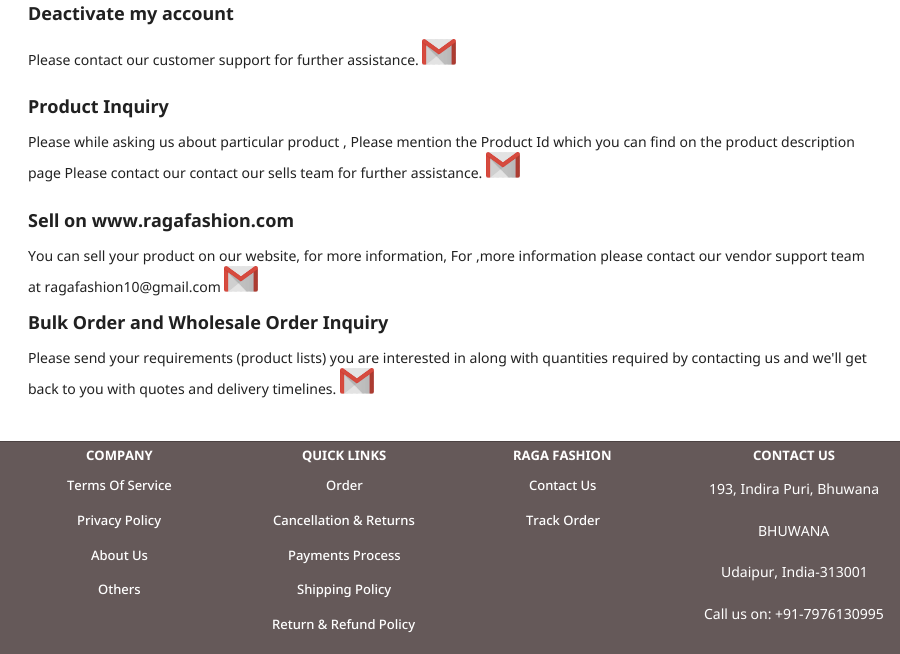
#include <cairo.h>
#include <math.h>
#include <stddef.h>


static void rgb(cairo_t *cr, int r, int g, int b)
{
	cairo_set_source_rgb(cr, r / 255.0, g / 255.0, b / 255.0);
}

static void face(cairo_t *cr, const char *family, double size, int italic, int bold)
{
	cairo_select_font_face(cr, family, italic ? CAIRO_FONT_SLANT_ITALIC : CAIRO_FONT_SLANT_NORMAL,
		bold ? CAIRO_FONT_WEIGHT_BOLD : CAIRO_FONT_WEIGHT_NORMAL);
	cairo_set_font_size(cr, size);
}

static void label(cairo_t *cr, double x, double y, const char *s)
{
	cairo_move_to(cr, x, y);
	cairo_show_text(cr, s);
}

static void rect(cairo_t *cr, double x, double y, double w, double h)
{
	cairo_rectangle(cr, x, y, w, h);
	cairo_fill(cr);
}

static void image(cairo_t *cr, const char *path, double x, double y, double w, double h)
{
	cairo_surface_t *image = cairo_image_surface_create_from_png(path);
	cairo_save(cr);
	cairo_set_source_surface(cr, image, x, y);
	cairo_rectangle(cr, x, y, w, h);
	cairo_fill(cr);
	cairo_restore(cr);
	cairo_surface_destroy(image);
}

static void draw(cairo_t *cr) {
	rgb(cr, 255, 255, 255);
	cairo_paint(cr);
	face(cr, "Noto Sans", 18, 0, 1);
	rgb(cr, 33, 33, 33);
	label(cr, 28, 20, "Deactivate my account");
	face(cr, "Noto Sans", 14, 0, 0);
	label(cr, 28, 65, "Please contact our customer support for further assistance.");
	image(cr, "image0.png", 422, 39, 34, 26);
	face(cr, "Noto Sans", 18, 0, 1);
	label(cr, 28, 113, "Product Inquiry");
	face(cr, "Noto Sans", 14, 0, 0);
	label(cr, 28, 147, "Please while asking us about particular product , Please mention the Product Id which you can find on the product description");
	label(cr, 28, 178, "page Please contact our contact our sells team for further assistance.");
	image(cr, "image0.png", 486, 152, 34, 26);
	face(cr, "Noto Sans", 18, 0, 1);
	label(cr, 28, 227, "Sell on www.ragafashion.com");
	face(cr, "Noto Sans", 14, 0, 0);
	label(cr, 28, 261, "You can sell your product on our website, for more information, For ,more information please contact our vendor support team");
	label(cr, 28, 292, "at ragafashion10@gmail.com");
	image(cr, "image1.png", 224, 266, 34, 26);
	face(cr, "Noto Sans", 18, 0, 1);
	label(cr, 28, 329, "Bulk Order and Wholesale Order Inquiry");
	face(cr, "Noto Sans", 14, 0, 0);
	label(cr, 28, 363, "Please send your requirements (product lists) you are interested in along with quantities required by contacting us and we'll get");
	label(cr, 28, 394, "back to you with quotes and delivery timelines.");
	image(cr, "image0.png", 340, 368, 34, 26);
	rgb(cr, 101, 89, 89);
	rect(cr, 0, 442, 900, 212);
	rgb(cr, 76, 67, 67);
	rect(cr, 0, 441, 900, 1);
	face(cr, "Noto Sans", 13, 0, 1);
	rgb(cr, 255, 255, 255);
	label(cr, 86, 460, "COMPANY");
	face(cr, "Noto Sans Medium", 13, 0, 0);
	label(cr, 67, 490, "Terms Of Service");
	label(cr, 77, 525, "Privacy Policy");
	label(cr, 91, 560, "About Us");
	label(cr, 98, 594, "Others");
	face(cr, "Noto Sans", 13, 0, 1);
	label(cr, 302, 460, "QUICK LINKS");
	face(cr, "Noto Sans Medium", 13, 0, 0);
	label(cr, 326, 490, "Order");
	label(cr, 273, 525, "Cancellation & Returns");
	label(cr, 288, 560, "Payments Process");
	label(cr, 297, 594, "Shipping Policy");
	label(cr, 272, 629, "Return & Refund Policy");
	face(cr, "Noto Sans", 13, 0, 1);
	label(cr, 513, 460, "RAGA FASHION");
	face(cr, "Noto Sans Medium", 13, 0, 0);
	label(cr, 529, 490, "Contact Us");
	label(cr, 526, 525, "Track Order");
	face(cr, "Noto Sans", 13, 0, 1);
	label(cr, 753, 460, "CONTACT US");
	face(cr, "Noto Sans", 14, 0, 0);
	label(cr, 709, 494, "193, Indira Puri, Bhuwana");
	label(cr, 758, 536, "BHUWANA");
	label(cr, 721, 577, "Udaipur, India-313001");
	label(cr, 704, 619, "Call us on: +91-7976130995");
}

int main(void) {
	cairo_surface_t *surface = cairo_image_surface_create(CAIRO_FORMAT_RGB24, 900, 654);
	cairo_t *cr = cairo_create(surface);
	cairo_font_options_t *options = cairo_font_options_create();
	cairo_font_options_set_hint_metrics(options, CAIRO_HINT_METRICS_OFF);
	cairo_font_options_set_hint_style(options, CAIRO_HINT_STYLE_NONE);
	cairo_set_font_options(cr, options);
	cairo_set_miter_limit(cr, 4);
	draw(cr);
	cairo_surface_write_to_png(surface, "render.png");
	cairo_font_options_destroy(options);
	cairo_destroy(cr);
	cairo_surface_destroy(surface);
	return 0;
}
